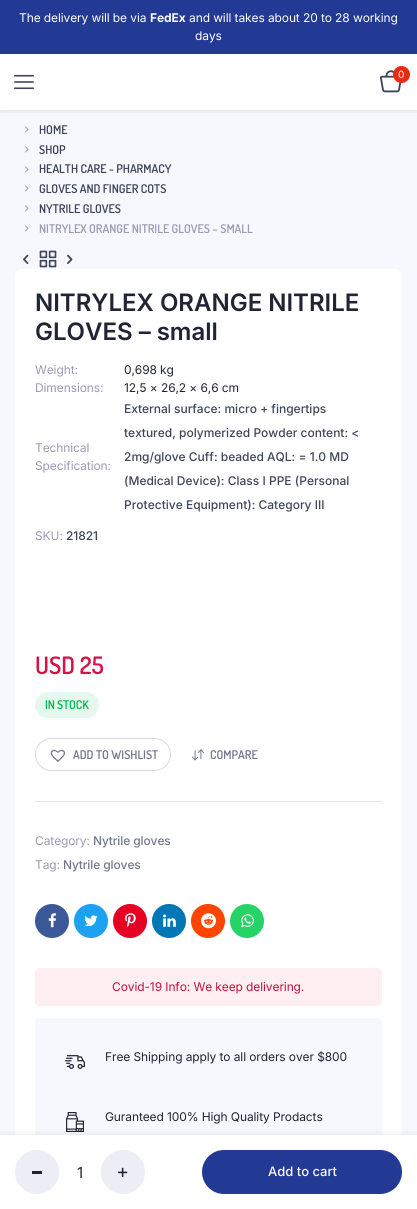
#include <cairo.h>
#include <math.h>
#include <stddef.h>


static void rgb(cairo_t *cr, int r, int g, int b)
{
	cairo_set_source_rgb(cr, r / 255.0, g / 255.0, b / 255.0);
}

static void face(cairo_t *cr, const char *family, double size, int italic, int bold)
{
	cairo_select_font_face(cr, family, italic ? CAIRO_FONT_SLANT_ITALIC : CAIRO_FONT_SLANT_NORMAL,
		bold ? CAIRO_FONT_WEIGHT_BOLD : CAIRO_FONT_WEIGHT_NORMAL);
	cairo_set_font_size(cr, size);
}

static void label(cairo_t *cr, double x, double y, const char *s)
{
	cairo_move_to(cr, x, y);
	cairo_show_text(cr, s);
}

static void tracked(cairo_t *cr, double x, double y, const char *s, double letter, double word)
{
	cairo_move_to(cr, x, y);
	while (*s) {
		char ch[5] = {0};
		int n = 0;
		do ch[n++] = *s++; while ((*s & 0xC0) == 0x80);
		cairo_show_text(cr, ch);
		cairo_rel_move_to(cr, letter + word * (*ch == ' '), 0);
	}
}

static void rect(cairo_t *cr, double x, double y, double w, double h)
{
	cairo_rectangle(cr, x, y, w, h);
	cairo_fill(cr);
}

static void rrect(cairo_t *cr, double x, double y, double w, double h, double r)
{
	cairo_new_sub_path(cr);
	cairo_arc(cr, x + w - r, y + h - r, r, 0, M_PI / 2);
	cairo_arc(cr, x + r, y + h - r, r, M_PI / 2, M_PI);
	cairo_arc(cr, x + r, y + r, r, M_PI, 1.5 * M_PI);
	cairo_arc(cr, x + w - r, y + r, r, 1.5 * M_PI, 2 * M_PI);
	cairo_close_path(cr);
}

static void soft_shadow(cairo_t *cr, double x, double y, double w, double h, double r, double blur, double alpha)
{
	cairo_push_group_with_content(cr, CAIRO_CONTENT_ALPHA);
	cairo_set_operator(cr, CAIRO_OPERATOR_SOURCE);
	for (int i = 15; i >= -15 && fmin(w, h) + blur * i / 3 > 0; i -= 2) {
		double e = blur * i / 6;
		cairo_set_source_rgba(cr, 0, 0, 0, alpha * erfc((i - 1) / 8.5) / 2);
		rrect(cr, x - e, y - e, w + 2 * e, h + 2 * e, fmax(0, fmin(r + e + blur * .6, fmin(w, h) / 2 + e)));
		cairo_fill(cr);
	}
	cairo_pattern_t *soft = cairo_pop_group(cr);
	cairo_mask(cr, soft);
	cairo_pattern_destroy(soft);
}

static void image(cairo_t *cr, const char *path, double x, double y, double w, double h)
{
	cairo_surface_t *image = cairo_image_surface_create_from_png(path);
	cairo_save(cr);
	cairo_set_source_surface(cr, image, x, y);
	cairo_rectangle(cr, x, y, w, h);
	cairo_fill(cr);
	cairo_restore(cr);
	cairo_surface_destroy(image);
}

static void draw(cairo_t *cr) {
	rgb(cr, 255, 255, 255);
	cairo_paint(cr);
	rgb(cr, 35, 58, 149);
	rect(cr, 0, 0, 417, 54);
	face(cr, "Inter", 12, 0, 0);
	rgb(cr, 255, 255, 255);
	tracked(cr, 19, 22, "The delivery will be via", -0.1, 0);
	face(cr, "Inter", 12, 0, 1);
	tracked(cr, 150, 22, "FedEx", -0.1, 0);
	face(cr, "Inter", 12, 0, 0);
	tracked(cr, 189, 22, "and will takes about 20 to 28 working", -0.1, 0);
	tracked(cr, 195, 40, "days", -0.1, 0);
	rgb(cr, 247, 248, 253);
	rect(cr, 0, 110, 417, 1025);
	cairo_save(cr);
	cairo_rectangle(cr, 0, 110, 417, 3);
	cairo_clip(cr);
	rgb(cr, 0, 0, 0);
	soft_shadow(cr, 0, 56, 417, 56, 0, 2.5, 0.07);
	cairo_restore(cr);
	image(cr, "image0.png", 14, 74, 20, 16);
	image(cr, "image1.png", 380, 70, 22, 23);
	rgb(cr, 234, 43, 15);
	cairo_arc(cr, 401.5, 74.5, 8.5, 0, 2 * M_PI);
	cairo_fill(cr);
	face(cr, "Inter", 10, 0, 0);
	rgb(cr, 255, 255, 255);
	tracked(cr, 398, 78, "0", -0.1, 0);
	image(cr, "image2.png", 25, 126, 4, 7);
	face(cr, "Dosis SemiBold", 12, 0, 0);
	rgb(cr, 62, 68, 90);
	label(cr, 39, 134, "HOME");
	image(cr, "image2.png", 25, 146, 4, 7);
	label(cr, 39, 154, "SHOP");
	image(cr, "image2.png", 25, 166, 4, 7);
	label(cr, 39, 173, "HEALTH CARE - PHARMACY");
	image(cr, "image2.png", 25, 185, 4, 7);
	label(cr, 39, 193, "GLOVES AND FINGER COTS");
	image(cr, "image2.png", 25, 205, 4, 7);
	label(cr, 39, 213, "NYTRILE GLOVES");
	image(cr, "image2.png", 25, 225, 4, 7);
	rgb(cr, 155, 155, 180);
	label(cr, 39, 233, "NITRYLEX ORANGE NITRILE GLOVES – SMALL");
	image(cr, "image3.png", 23, 254, 6, 10);
	image(cr, "image4.png", 39, 250, 18, 18);
	image(cr, "image5.png", 67, 254, 6, 10);
	rgb(cr, 255, 255, 255);
	rrect(cr, 15, 269, 387, 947, 7);
	cairo_fill(cr);
	face(cr, "Inter SemiBold", 24, 0, 0);
	rgb(cr, 32, 36, 53);
	label(cr, 35, 311, "NITRYLEX ORANGE NITRILE");
	label(cr, 35, 340, "GLOVES – small");
	face(cr, "Inter", 12, 0, 0);
	rgb(cr, 155, 155, 180);
	tracked(cr, 35, 374, "Weight:", -0.1, 0);
	rgb(cr, 32, 36, 53);
	tracked(cr, 124, 374, "0,698 kg", -0.1, 0);
	rgb(cr, 155, 155, 180);
	tracked(cr, 35, 392, "Dimensions:", -0.1, 0);
	rgb(cr, 32, 36, 53);
	tracked(cr, 124, 392, "12,5 × 26,2 × 6,6 cm", -0.1, 0);
	rgb(cr, 155, 155, 180);
	tracked(cr, 35, 452, "Technical", -0.1, 0);
	tracked(cr, 35, 470, "Specification:", -0.1, 0);
	face(cr, "Inter Medium", 12, 0, 0);
	rgb(cr, 62, 68, 90);
	label(cr, 124, 413, "External surface: micro + fingertips");
	label(cr, 124, 437, "textured, polymerized Powder content: <");
	label(cr, 124, 461, "2mg/glove Cuff: beaded AQL: = 1.0 MD");
	label(cr, 124, 485, "(Medical Device): Class I PPE (Personal");
	label(cr, 124, 509, "Protective Equipment): Category III");
	face(cr, "Inter", 12, 0, 0);
	rgb(cr, 155, 155, 180);
	tracked(cr, 35, 540, "SKU:", -0.1, 0);
	face(cr, "Inter Medium", 12, 0, 0);
	rgb(cr, 62, 68, 90);
	tracked(cr, 66, 540, "21821", -0.1, 0);
	face(cr, "Dosis SemiBold", 24, 0, 0);
	rgb(cr, 213, 18, 67);
	label(cr, 35, 674, "USD 25");
	rgb(cr, 229, 248, 237);
	rrect(cr, 35, 692, 64, 26, 13);
	cairo_fill(cr);
	face(cr, "Dosis SemiBold", 12, 0, 0);
	rgb(cr, 0, 184, 83);
	tracked(cr, 45, 709, "IN STOCK", -0.1, 0);
	rrect(cr, 35.5, 738.5, 135, 32, 16);
	rgb(cr, 217, 217, 233);
	cairo_set_line_width(cr, 1);
	cairo_stroke(cr);
	image(cr, "image6.png", 50, 749, 15, 13);
	rgb(cr, 113, 119, 142);
	label(cr, 73, 759, "ADD TO WISHLIST");
	image(cr, "image7.png", 192, 749, 12, 12);
	label(cr, 210, 759, "COMPARE");
	rgb(cr, 228, 229, 238);
	rect(cr, 35, 801, 347, 1);
	face(cr, "Inter", 12, 0, 0);
	rgb(cr, 155, 155, 180);
	tracked(cr, 35, 845, "Category:", -0.1, 0);
	face(cr, "Inter Medium", 12, 0, 0);
	rgb(cr, 113, 119, 142);
	tracked(cr, 93, 845, "Nytrile gloves", -0.1, 0);
	face(cr, "Inter", 12, 0, 0);
	rgb(cr, 155, 155, 180);
	tracked(cr, 35, 869, "Tag:", -0.1, 0);
	face(cr, "Inter Medium", 12, 0, 0);
	rgb(cr, 113, 119, 142);
	tracked(cr, 63, 869, "Nytrile gloves", -0.1, 0);
	rgb(cr, 59, 89, 152);
	cairo_new_path(cr);
	cairo_arc(cr, 52, 921, 17, 0, 2 * M_PI);
	cairo_fill(cr);
	image(cr, "image8.png", 48, 913, 9, 15);
	rgb(cr, 29, 161, 242);
	cairo_arc(cr, 91, 921, 17, 0, 2 * M_PI);
	cairo_fill(cr);
	image(cr, "image9.png", 84, 915, 14, 12);
	rgb(cr, 230, 0, 35);
	cairo_arc(cr, 130, 921, 17, 0, 2 * M_PI);
	cairo_fill(cr);
	image(cr, "image10.png", 125, 913, 11, 15);
	rgb(cr, 0, 119, 181);
	cairo_arc(cr, 169, 921, 17, 0, 2 * M_PI);
	cairo_fill(cr);
	image(cr, "image11.png", 163, 914, 13, 13);
	rgb(cr, 255, 69, 0);
	cairo_arc(cr, 208, 921, 17, 0, 2 * M_PI);
	cairo_fill(cr);
	image(cr, "image12.png", 201, 913, 15, 16);
	rgb(cr, 37, 211, 102);
	cairo_arc(cr, 247, 921, 17, 0, 2 * M_PI);
	cairo_fill(cr);
	image(cr, "image13.png", 241, 914, 13, 14);
	rgb(cr, 247, 248, 253);
	rrect(cr, 35, 1018, 347, 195, 4);
	cairo_fill(cr);
	image(cr, "image16.png", 66, 1112, 18, 20);
	rgb(cr, 0, 0, 0);
	soft_shadow(cr, 0, 1133, 417, 74, 0, 2.5, 0.07);
	rgb(cr, 255, 255, 255);
	rect(cr, 0, 1135, 417, 74);
	rgb(cr, 237, 238, 245);
	cairo_arc(cr, 37, 1172, 22, 0, 2 * M_PI);
	cairo_fill(cr);
	rgb(cr, 32, 36, 53);
	rect(cr, 32, 1171, 10, 3);
	face(cr, "Inter", 15, 0, 0);
	label(cr, 77, 1178, "1");
	rgb(cr, 237, 238, 245);
	cairo_new_path(cr);
	cairo_arc(cr, 123, 1172, 22, 0, 2 * M_PI);
	cairo_fill(cr);
	image(cr, "image14.png", 118, 1167, 10, 10);
	rgb(cr, 35, 58, 149);
	rrect(cr, 202, 1150, 200, 44, 22);
	cairo_fill(cr);
	face(cr, "Inter Medium", 13, 0, 0);
	rgb(cr, 255, 255, 255);
	label(cr, 268, 1176, "Add to cart");
	rgb(cr, 255, 238, 242);
	rrect(cr, 35, 968, 347, 38, 4);
	cairo_fill(cr);
	face(cr, "Inter", 12, 0, 0);
	rgb(cr, 190, 20, 60);
	tracked(cr, 112, 991, "Covid-19 Info: We keep delivering.", -0.1, 0);
	image(cr, "image15.png", 65, 1055, 20, 14);
	rgb(cr, 32, 36, 53);
	tracked(cr, 105, 1061, "Free Shipping apply to all orders over $800", -0.1, 0);
	tracked(cr, 105, 1121, "Guranteed 100% High Quality Prodacts", -0.1, 0);
}

int main(void) {
	cairo_surface_t *surface = cairo_image_surface_create(CAIRO_FORMAT_RGB24, 417, 1209);
	cairo_t *cr = cairo_create(surface);
	cairo_font_options_t *options = cairo_font_options_create();
	cairo_font_options_set_hint_metrics(options, CAIRO_HINT_METRICS_OFF);
	cairo_font_options_set_hint_style(options, CAIRO_HINT_STYLE_NONE);
	cairo_set_font_options(cr, options);
	cairo_set_miter_limit(cr, 4);
	draw(cr);
	cairo_surface_write_to_png(surface, "render.png");
	cairo_font_options_destroy(options);
	cairo_destroy(cr);
	cairo_surface_destroy(surface);
	return 0;
}
